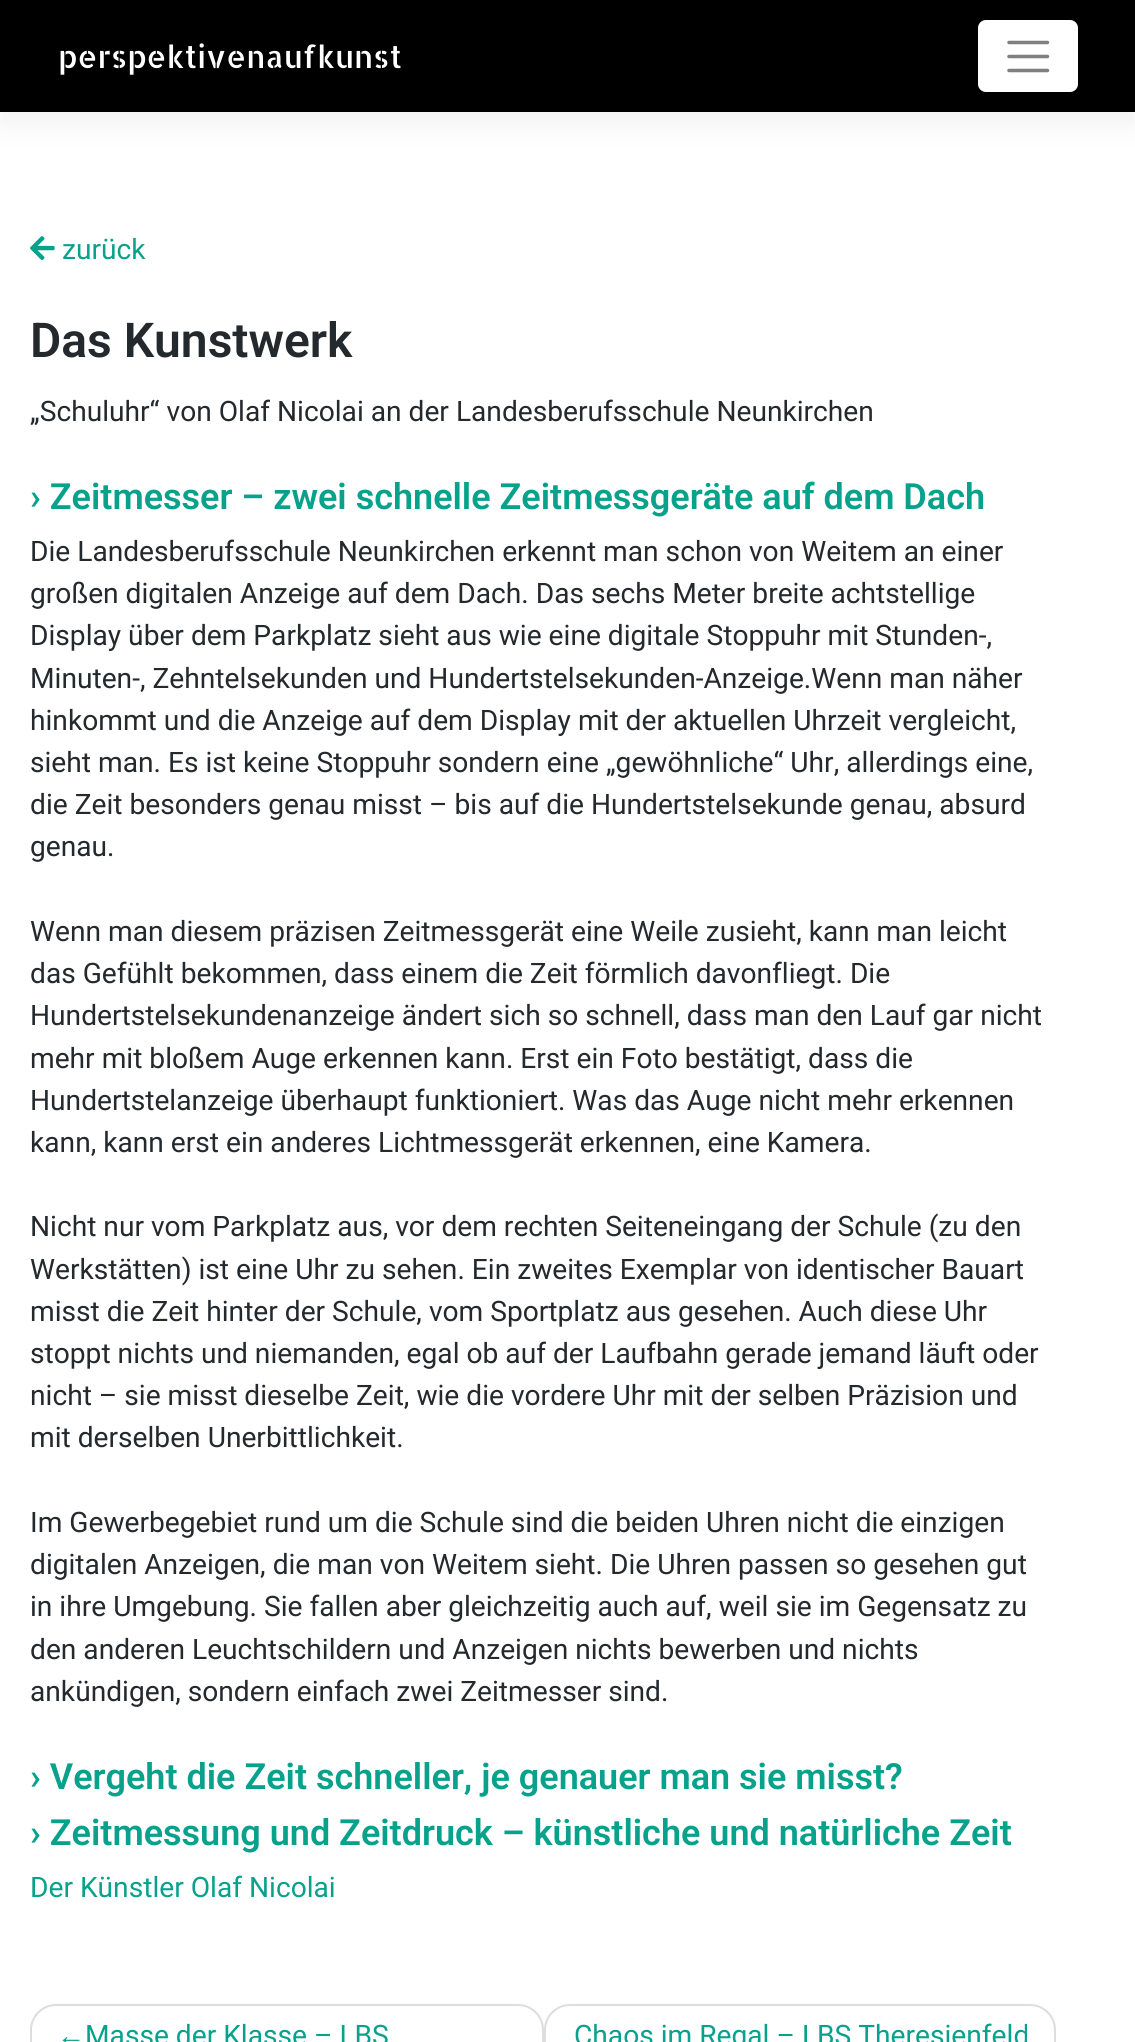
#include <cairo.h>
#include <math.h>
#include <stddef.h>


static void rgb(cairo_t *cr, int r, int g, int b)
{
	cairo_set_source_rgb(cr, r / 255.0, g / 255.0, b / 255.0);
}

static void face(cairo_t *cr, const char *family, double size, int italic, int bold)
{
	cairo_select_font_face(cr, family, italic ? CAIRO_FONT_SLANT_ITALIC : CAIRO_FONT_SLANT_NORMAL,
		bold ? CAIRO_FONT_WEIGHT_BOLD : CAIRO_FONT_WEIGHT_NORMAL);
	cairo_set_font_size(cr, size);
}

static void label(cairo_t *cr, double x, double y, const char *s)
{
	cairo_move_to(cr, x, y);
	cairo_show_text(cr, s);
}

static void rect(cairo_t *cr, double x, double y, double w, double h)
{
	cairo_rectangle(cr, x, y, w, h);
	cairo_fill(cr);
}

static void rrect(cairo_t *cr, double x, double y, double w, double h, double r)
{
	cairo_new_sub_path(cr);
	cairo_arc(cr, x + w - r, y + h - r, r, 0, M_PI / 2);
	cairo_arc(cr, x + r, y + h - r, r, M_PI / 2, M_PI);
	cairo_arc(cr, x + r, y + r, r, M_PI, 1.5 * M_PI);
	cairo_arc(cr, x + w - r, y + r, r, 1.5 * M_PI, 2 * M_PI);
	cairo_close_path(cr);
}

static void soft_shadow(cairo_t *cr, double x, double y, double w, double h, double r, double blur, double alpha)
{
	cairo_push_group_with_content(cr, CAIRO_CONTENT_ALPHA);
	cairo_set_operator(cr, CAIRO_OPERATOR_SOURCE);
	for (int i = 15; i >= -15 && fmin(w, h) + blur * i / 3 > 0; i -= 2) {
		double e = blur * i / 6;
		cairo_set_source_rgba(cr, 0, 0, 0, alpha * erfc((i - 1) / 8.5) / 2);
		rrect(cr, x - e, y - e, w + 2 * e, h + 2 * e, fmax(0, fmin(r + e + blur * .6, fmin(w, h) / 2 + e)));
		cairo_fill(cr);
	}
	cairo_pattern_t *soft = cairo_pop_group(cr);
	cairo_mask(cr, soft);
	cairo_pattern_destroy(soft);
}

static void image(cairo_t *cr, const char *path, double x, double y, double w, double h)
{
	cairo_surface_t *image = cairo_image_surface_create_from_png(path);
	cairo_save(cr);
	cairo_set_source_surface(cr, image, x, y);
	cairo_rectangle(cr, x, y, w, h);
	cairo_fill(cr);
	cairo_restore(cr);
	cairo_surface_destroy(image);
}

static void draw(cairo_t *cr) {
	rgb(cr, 255, 255, 255);
	cairo_paint(cr);
	rgb(cr, 0, 0, 0);
	soft_shadow(cr, 0, 14, 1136, 112, 0, 14, 0.05);
	rgb(cr, 0, 0, 0);
	rect(cr, 0, 0, 1135, 112);
	face(cr, "Allerta Stencil", 31, 0, 0);
	rgb(cr, 255, 255, 255);
	label(cr, 58, 68, "perspektivenaufkunst");
	rrect(cr, 978, 20, 100, 72, 8);
	cairo_fill(cr);
	cairo_new_path(cr);
	cairo_move_to(cr, 1009, 42.5);
	cairo_line_to(cr, 1047.5, 42.5);
	cairo_move_to(cr, 1009, 56.5);
	cairo_line_to(cr, 1047.5, 56.5);
	cairo_move_to(cr, 1009, 70.5);
	cairo_line_to(cr, 1047.5, 70.5);
	rgb(cr, 128, 128, 128);
	cairo_set_line_width(cr, 3.5);
	cairo_set_line_cap(cr, CAIRO_LINE_CAP_ROUND);
	cairo_stroke(cr);
	image(cr, "image0.png", 30, 236, 25, 24);
	face(cr, "Roboto", 28.15, 0, 0);
	rgb(cr, 8, 161, 139);
	label(cr, 62, 259, "zurück");
	face(cr, "Roboto SemiBold", 48, 0, 0);
	rgb(cr, 36, 41, 46);
	label(cr, 30, 357, "Das Kunstwerk");
	face(cr, "Roboto", 28.15, 0, 0);
	label(cr, 30, 421, "„Schuluhr“ von Olaf Nicolai an der Landesberufsschule Neunkirchen");
	face(cr, "Roboto SemiBold", 36, 0, 0);
	rgb(cr, 8, 161, 139);
	label(cr, 30, 509, "› Zeitmesser – zwei schnelle Zeitmessgeräte auf dem Dach");
	face(cr, "Roboto", 28.15, 0, 0);
	rgb(cr, 36, 41, 46);
	label(cr, 30, 561, "Die Landesberufsschule Neunkirchen erkennt man schon von Weitem an einer");
	label(cr, 30, 603, "großen digitalen Anzeige auf dem Dach. Das sechs Meter breite achtstellige");
	label(cr, 30, 645, "Display über dem Parkplatz sieht aus wie eine digitale Stoppuhr mit Stunden-,");
	label(cr, 30, 688, "Minuten-, Zehntelsekunden und Hundertstelsekunden-Anzeige.Wenn man näher");
	label(cr, 30, 730, "hinkommt und die Anzeige auf dem Display mit der aktuellen Uhrzeit vergleicht,");
	label(cr, 30, 772, "sieht man. Es ist keine Stoppuhr sondern eine „gewöhnliche“ Uhr, allerdings eine,");
	label(cr, 30, 814, "die Zeit besonders genau misst – bis auf die Hundertstelsekunde genau, absurd");
	label(cr, 30, 856, "genau.");
	label(cr, 30, 941, "Wenn man diesem präzisen Zeitmessgerät eine Weile zusieht, kann man leicht");
	label(cr, 30, 983, "das Gefühlt bekommen, dass einem die Zeit förmlich davonfliegt. Die");
	label(cr, 30, 1025, "Hundertstelsekundenanzeige ändert sich so schnell, dass man den Lauf gar nicht");
	label(cr, 30, 1068, "mehr mit bloßem Auge erkennen kann. Erst ein Foto bestätigt, dass die");
	label(cr, 30, 1110, "Hundertstelanzeige überhaupt funktioniert. Was das Auge nicht mehr erkennen");
	label(cr, 30, 1152, "kann, kann erst ein anderes Lichtmessgerät erkennen, eine Kamera.");
	label(cr, 30, 1236, "Nicht nur vom Parkplatz aus, vor dem rechten Seiteneingang der Schule (zu den");
	label(cr, 30, 1279, "Werkstätten) ist eine Uhr zu sehen. Ein zweites Exemplar von identischer Bauart");
	label(cr, 30, 1321, "misst die Zeit hinter der Schule, vom Sportplatz aus gesehen. Auch diese Uhr");
	label(cr, 30, 1363, "stoppt nichts und niemanden, egal ob auf der Laufbahn gerade jemand läuft oder");
	label(cr, 30, 1405, "nicht – sie misst dieselbe Zeit, wie die vordere Uhr mit der selben Präzision und");
	label(cr, 30, 1447, "mit derselben Unerbittlichkeit.");
	label(cr, 30, 1532, "Im Gewerbegebiet rund um die Schule sind die beiden Uhren nicht die einzigen");
	label(cr, 30, 1574, "digitalen Anzeigen, die man von Weitem sieht. Die Uhren passen so gesehen gut");
	label(cr, 30, 1616, "in ihre Umgebung. Sie fallen aber gleichzeitig auch auf, weil sie im Gegensatz zu");
	label(cr, 30, 1659, "den anderen Leuchtschildern und Anzeigen nichts bewerben und nichts");
	label(cr, 30, 1701, "ankündigen, sondern einfach zwei Zeitmesser sind.");
	face(cr, "Roboto SemiBold", 36, 0, 0);
	rgb(cr, 8, 161, 139);
	label(cr, 30, 1789, "› Vergeht die Zeit schneller, je genauer man sie misst?");
	label(cr, 30, 1845, "› Zeitmessung und Zeitdruck – künstliche und natürliche Zeit");
	face(cr, "Roboto", 28.15, 0, 0);
	label(cr, 30, 1897, "Der Künstler Olaf Nicolai");
	rrect(cr, 31, 2005, 512, 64, 25);
	rgb(cr, 221, 221, 221);
	cairo_set_line_width(cr, 2);
	cairo_set_line_cap(cr, CAIRO_LINE_CAP_BUTT);
	cairo_stroke(cr);
	face(cr, "Liberation Sans", 28.15, 0, 0);
	rgb(cr, 8, 161, 139);
	label(cr, 57, 2045, "←");
	face(cr, "Roboto", 28.15, 0, 0);
	label(cr, 85, 2045, "Masse der Klasse – LBS");
	rrect(cr, 545, 2005, 510, 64, 25);
	rgb(cr, 221, 221, 221);
	cairo_stroke(cr);
	rgb(cr, 8, 161, 139);
	label(cr, 574, 2045, "Chaos im Regal – LBS Theresienfeld");
}

int main(void) {
	cairo_surface_t *surface = cairo_image_surface_create(CAIRO_FORMAT_RGB24, 1135, 2042);
	cairo_t *cr = cairo_create(surface);
	cairo_font_options_t *options = cairo_font_options_create();
	cairo_font_options_set_hint_metrics(options, CAIRO_HINT_METRICS_OFF);
	cairo_font_options_set_hint_style(options, CAIRO_HINT_STYLE_NONE);
	cairo_set_font_options(cr, options);
	cairo_set_miter_limit(cr, 4);
	draw(cr);
	cairo_surface_write_to_png(surface, "render.png");
	cairo_font_options_destroy(options);
	cairo_destroy(cr);
	cairo_surface_destroy(surface);
	return 0;
}
